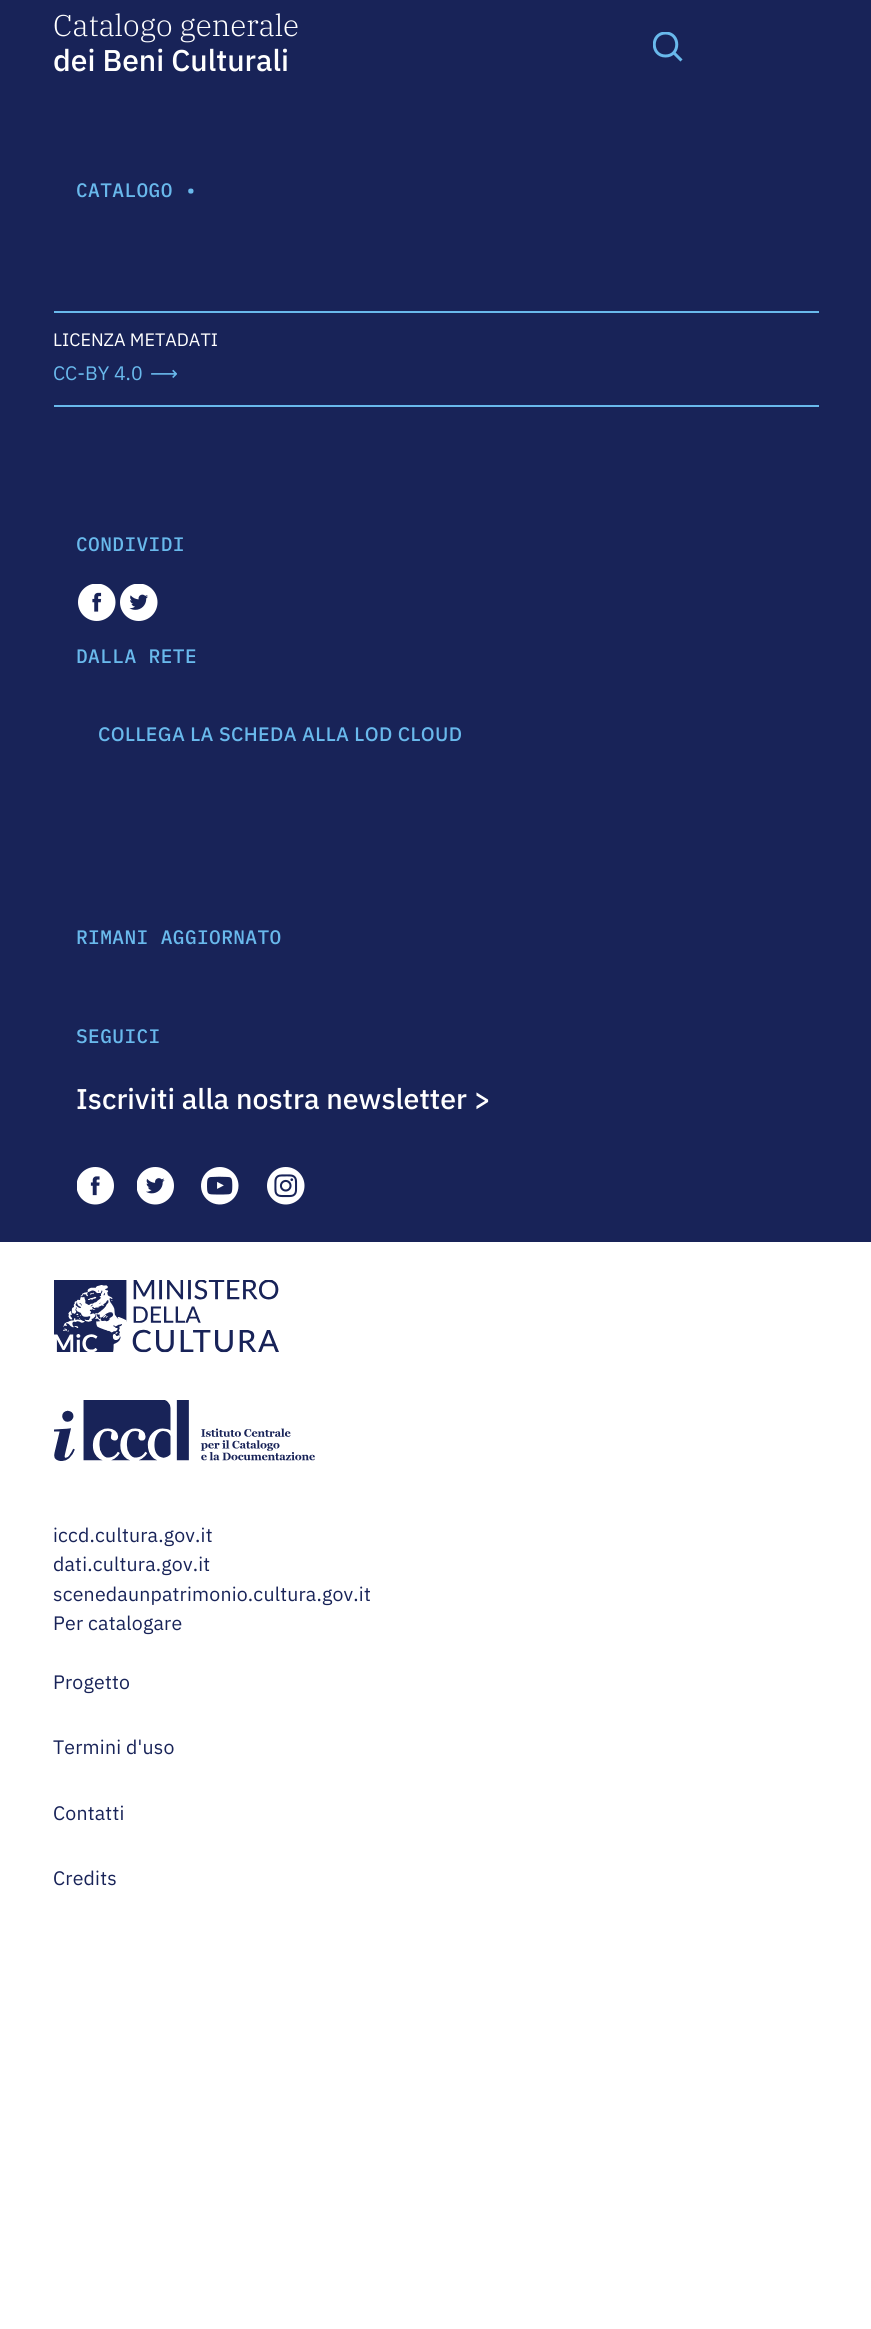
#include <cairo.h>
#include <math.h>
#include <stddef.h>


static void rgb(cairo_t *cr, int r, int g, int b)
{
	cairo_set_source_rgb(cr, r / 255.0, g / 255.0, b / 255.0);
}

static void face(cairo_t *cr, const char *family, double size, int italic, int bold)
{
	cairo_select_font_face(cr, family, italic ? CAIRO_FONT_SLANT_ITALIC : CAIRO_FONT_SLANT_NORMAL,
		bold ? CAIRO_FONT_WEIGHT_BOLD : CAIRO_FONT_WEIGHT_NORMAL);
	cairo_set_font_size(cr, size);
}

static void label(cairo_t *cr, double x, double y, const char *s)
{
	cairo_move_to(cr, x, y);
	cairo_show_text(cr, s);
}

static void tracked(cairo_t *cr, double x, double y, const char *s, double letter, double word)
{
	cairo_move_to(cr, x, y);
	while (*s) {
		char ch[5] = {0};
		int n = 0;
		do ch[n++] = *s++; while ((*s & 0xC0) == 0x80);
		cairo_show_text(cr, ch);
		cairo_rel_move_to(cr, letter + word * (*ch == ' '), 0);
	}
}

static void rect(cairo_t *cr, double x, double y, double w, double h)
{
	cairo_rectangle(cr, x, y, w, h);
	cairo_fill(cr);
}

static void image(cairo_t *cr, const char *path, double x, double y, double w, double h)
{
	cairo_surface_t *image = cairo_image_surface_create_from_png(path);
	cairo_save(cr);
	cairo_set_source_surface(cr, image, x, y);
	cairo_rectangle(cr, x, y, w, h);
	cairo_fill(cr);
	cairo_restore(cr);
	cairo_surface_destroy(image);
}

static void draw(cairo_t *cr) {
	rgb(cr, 255, 255, 255);
	cairo_paint(cr);
	rgb(cr, 24, 35, 88);
	rect(cr, 0, 0, 871, 1242);
	face(cr, "IBM Plex Serif Light", 30, 0, 0);
	rgb(cr, 255, 255, 255);
	label(cr, 53, 36, "Catalogo generale");
	face(cr, "IBM Plex Sans Medium", 30, 0, 0);
	label(cr, 53, 71, "dei Beni Culturali");
	cairo_save(cr);
	cairo_rectangle(cr, 653, 32, 30, 30);
	cairo_clip(cr);
	cairo_new_path(cr);
	cairo_move_to(cr, 665.5, 56);
	cairo_curve_to(cr, 680.5, 56, 680.5, 33, 665.5, 33);
	cairo_curve_to(cr, 650.5, 33, 650.5, 56, 665.5, 56);
	cairo_close_path(cr);
	rgb(cr, 105, 185, 236);
	cairo_set_line_width(cr, 3);
	cairo_stroke(cr);
	cairo_restore(cr);
	cairo_new_path(cr);
	cairo_move_to(cr, 674, 53);
	cairo_line_to(cr, 681.5, 60.5);
	rgb(cr, 105, 185, 236);
	cairo_set_line_width(cr, 3);
	cairo_stroke(cr);
	face(cr, "IBM Plex Mono Medium", 19.5, 0, 0);
	tracked(cr, 76, 197, "CATALOGO •", 0.4, 0);
	rect(cr, 54, 311, 765, 2);
	rect(cr, 54, 405, 765, 2);
	face(cr, "IBM Plex Sans", 18, 0, 0);
	rgb(cr, 255, 255, 255);
	label(cr, 53, 346, "LICENZA METADATI");
	face(cr, "IBM Plex Sans", 19.5, 0, 0);
	rgb(cr, 105, 185, 236);
	label(cr, 53, 380, "CC-BY 4.0");
	face(cr, "DejaVu Sans", 19.5, 0, 0);
	label(cr, 150, 380, "⟶");
	face(cr, "IBM Plex Mono Medium", 19.5, 0, 0);
	tracked(cr, 76, 551, "CONDIVIDI", 0.4, 0);
	image(cr, "image0.png", 78, 584, 38, 37);
	image(cr, "image1.png", 120, 584, 38, 37);
	tracked(cr, 76, 663, "DALLA RETE", 0.4, 0);
	face(cr, "IBM Plex Sans Medium", 19.5, 0, 0);
	tracked(cr, 98, 741, "COLLEGA LA SCHEDA ALLA LOD CLOUD", 0.4, 0);
	face(cr, "IBM Plex Mono Medium", 19.5, 0, 0);
	tracked(cr, 76, 944, "RIMANI AGGIORNATO", 0.4, 0);
	tracked(cr, 76, 1043, "SEGUICI", 0.4, 0);
	face(cr, "IBM Plex Sans Medium", 28.5, 0, 0);
	rgb(cr, 255, 255, 255);
	label(cr, 76, 1109, "Iscriviti alla nostra newsletter >");
	image(cr, "image2.png", 77, 1167, 37, 38);
	image(cr, "image3.png", 137, 1167, 37, 38);
	image(cr, "image4.png", 201, 1167, 38, 38);
	image(cr, "image5.png", 267, 1167, 38, 38);
	image(cr, "image6.png", 54, 1280, 225, 73);
	image(cr, "image7.png", 54, 1400, 261, 61);
	face(cr, "IBM Plex Sans", 19.5, 0, 0);
	rgb(cr, 24, 35, 88);
	tracked(cr, 53, 1542, "iccd.cultura.gov.it", 0.2, 0);
	tracked(cr, 53, 1571, "dati.cultura.gov.it", 0.2, 0);
	tracked(cr, 53, 1601, "scenedaunpatrimonio.cultura.gov.it", 0.2, 0);
	tracked(cr, 53, 1630, "Per catalogare", 0.2, 0);
	tracked(cr, 53, 1689, "Progetto", 0.2, 0);
	tracked(cr, 53, 1754, "Termini d'uso", 0.2, 0);
	tracked(cr, 53, 1820, "Contatti", 0.2, 0);
	tracked(cr, 53, 1885, "Credits", 0.2, 0);
}

int main(void) {
	cairo_surface_t *surface = cairo_image_surface_create(CAIRO_FORMAT_RGB24, 871, 2329);
	cairo_t *cr = cairo_create(surface);
	cairo_font_options_t *options = cairo_font_options_create();
	cairo_font_options_set_hint_metrics(options, CAIRO_HINT_METRICS_OFF);
	cairo_font_options_set_hint_style(options, CAIRO_HINT_STYLE_NONE);
	cairo_set_font_options(cr, options);
	cairo_set_miter_limit(cr, 4);
	draw(cr);
	cairo_surface_write_to_png(surface, "render.png");
	cairo_font_options_destroy(options);
	cairo_destroy(cr);
	cairo_surface_destroy(surface);
	return 0;
}
